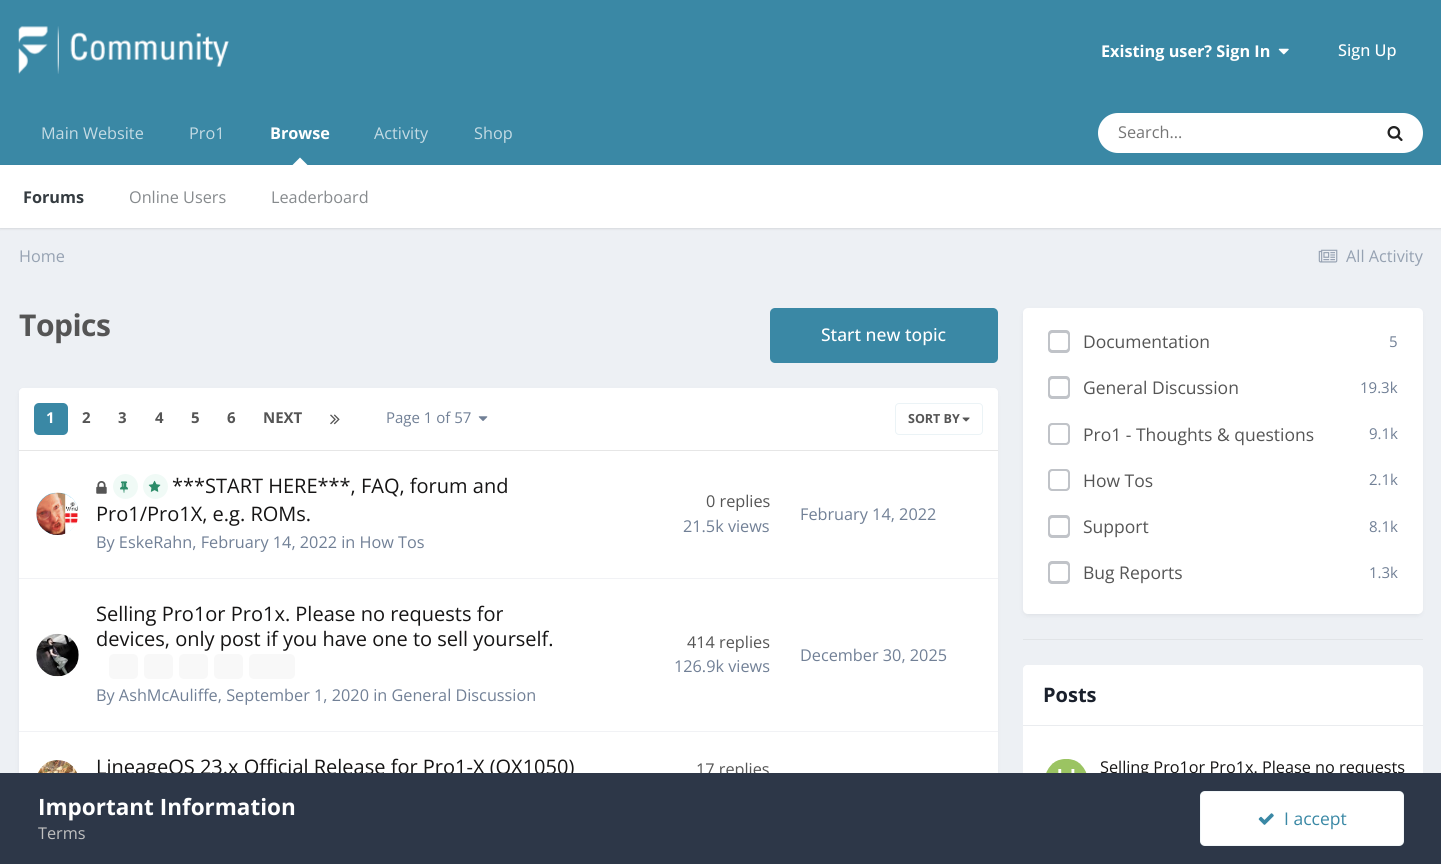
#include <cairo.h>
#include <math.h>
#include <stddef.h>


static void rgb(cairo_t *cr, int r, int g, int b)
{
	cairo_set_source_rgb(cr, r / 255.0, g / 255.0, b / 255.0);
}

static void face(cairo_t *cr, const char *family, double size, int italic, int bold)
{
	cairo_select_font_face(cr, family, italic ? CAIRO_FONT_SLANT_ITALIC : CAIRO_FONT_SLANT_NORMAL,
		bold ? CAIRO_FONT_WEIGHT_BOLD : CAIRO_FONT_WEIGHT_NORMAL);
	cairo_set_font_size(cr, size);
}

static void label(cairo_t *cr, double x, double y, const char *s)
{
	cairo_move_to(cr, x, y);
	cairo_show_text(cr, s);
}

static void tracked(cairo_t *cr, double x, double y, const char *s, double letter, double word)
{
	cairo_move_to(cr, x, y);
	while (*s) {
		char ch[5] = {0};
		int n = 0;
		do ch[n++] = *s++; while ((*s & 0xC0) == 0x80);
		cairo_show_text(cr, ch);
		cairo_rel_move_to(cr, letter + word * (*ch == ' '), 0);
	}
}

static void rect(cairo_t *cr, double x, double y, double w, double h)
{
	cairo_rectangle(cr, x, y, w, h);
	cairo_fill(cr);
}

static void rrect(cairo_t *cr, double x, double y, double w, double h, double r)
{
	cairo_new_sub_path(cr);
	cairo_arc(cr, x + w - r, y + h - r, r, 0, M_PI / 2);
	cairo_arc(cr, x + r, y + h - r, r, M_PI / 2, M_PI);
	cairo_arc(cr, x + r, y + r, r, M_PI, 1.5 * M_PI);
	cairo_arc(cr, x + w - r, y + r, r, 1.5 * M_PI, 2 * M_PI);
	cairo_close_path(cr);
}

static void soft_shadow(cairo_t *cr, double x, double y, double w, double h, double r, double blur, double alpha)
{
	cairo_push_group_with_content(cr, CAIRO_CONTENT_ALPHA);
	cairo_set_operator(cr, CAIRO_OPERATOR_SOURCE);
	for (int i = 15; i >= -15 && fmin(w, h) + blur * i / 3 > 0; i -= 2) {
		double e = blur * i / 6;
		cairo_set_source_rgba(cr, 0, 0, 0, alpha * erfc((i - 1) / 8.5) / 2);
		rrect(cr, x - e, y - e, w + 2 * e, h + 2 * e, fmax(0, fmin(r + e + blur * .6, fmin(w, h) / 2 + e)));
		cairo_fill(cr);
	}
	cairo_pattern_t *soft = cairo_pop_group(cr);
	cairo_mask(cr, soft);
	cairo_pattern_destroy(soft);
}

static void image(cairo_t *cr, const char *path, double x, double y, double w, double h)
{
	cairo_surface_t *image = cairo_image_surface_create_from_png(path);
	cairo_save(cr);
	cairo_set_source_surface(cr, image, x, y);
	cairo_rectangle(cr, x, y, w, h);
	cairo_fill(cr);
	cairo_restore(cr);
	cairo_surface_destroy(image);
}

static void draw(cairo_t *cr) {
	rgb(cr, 237, 240, 244);
	cairo_paint(cr);
	rgb(cr, 58, 136, 165);
	rect(cr, 0, 0, 1441, 165);
	image(cr, "image0.png", 18, 26, 211, 48);
	face(cr, "Open Sans", 16.25, 0, 1);
	rgb(cr, 255, 255, 255);
	label(cr, 1101, 57, "Existing user? Sign In");
	image(cr, "image1.png", 1278, 48, 11, 7);
	face(cr, "Open Sans Medium", 16.25, 0, 0);
	label(cr, 1338, 56, "Sign Up");
	face(cr, "Open Sans", 16.25, 0, 0);
	rgb(cr, 196, 219, 228);
	label(cr, 41, 139, "Main Website");
	label(cr, 474, 139, "Shop");
	face(cr, "Open Sans", 16.25, 0, 1);
	rgb(cr, 255, 255, 255);
	label(cr, 270, 139, "Browse");
	rgb(cr, 0, 0, 0);
	soft_shadow(cr, 0, 166, 1441, 63, 0, 1, 0.1);
	rgb(cr, 255, 255, 255);
	cairo_new_path(cr);
	cairo_move_to(cr, 307.5, 165);
	cairo_line_to(cr, 292.5, 165);
	cairo_line_to(cr, 300, 157.5);
	cairo_close_path(cr);
	cairo_fill(cr);
	rect(cr, 0, 165, 1441, 63);
	rgb(cr, 53, 60, 65);
	label(cr, 23, 203, "Forums");
	face(cr, "Open Sans", 16.25, 0, 0);
	rgb(cr, 134, 138, 141);
	label(cr, 129, 203, "Online Users");
	label(cr, 271, 203, "Leaderboard");
	rgb(cr, 196, 219, 228);
	label(cr, 189, 139, "Pro1");
	label(cr, 374, 139, "Activity");
	rgb(cr, 255, 255, 255);
	rrect(cr, 1098, 113, 325, 40, 20);
	cairo_fill(cr);
	rgb(cr, 117, 117, 117);
	label(cr, 1118, 138, "Search...");
	image(cr, "image2.png", 1387, 126, 16, 16);
	rgb(cr, 150, 162, 178);
	label(cr, 19, 262, "Home");
	image(cr, "image3.png", 1318, 249, 20, 14);
	label(cr, 1346, 262, "All Activity");
	face(cr, "Open Sans", 30, 0, 1);
	rgb(cr, 85, 85, 85);
	tracked(cr, 19, 336, "Topics", -0.5, 0);
	rgb(cr, 58, 136, 165);
	rrect(cr, 770, 308, 228, 55, 5);
	cairo_fill(cr);
	face(cr, "Open Sans Medium", 17.5, 0, 0);
	rgb(cr, 255, 255, 255);
	label(cr, 821, 341, "Start new topic");
	rgb(cr, 45, 55, 72);
	soft_shadow(cr, 20, 391, 976, 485, 4, 2.5, 0.1);
	rgb(cr, 255, 255, 255);
	rrect(cr, 19, 388, 979, 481, 5);
	cairo_fill(cr);
	cairo_new_path(cr);
	cairo_move_to(cr, 24, 388);
	cairo_line_to(cr, 993, 388);
	cairo_curve_to(cr, 996, 388, 998, 390, 998, 393);
	cairo_line_to(cr, 998, 451);
	cairo_line_to(cr, 19, 451);
	cairo_line_to(cr, 19, 393);
	cairo_curve_to(cr, 19, 390, 21, 388, 24, 388);
	cairo_close_path(cr);
	cairo_fill(cr);
	rgb(cr, 230, 230, 230);
	rect(cr, 19, 450, 979, 1);
	rgb(cr, 58, 136, 165);
	rrect(cr, 34, 403, 34, 32, 5);
	cairo_fill(cr);
	face(cr, "Open Sans", 15, 0, 1);
	rgb(cr, 255, 255, 255);
	label(cr, 46, 423, "1");
	rgb(cr, 85, 85, 85);
	label(cr, 82, 423, "2");
	label(cr, 118, 423, "3");
	label(cr, 155, 423, "4");
	label(cr, 191, 423, "5");
	label(cr, 227, 423, "6");
	label(cr, 263, 423, "NEXT");
	image(cr, "image4.png", 330, 414, 10, 11);
	face(cr, "Open Sans", 15, 0, 0);
	rgb(cr, 113, 128, 150);
	label(cr, 386, 423, "Page 1 of 57");
	image(cr, "image5.png", 478, 416, 10, 5);
	image(cr, "image6.png", 962, 417, 8, 5);
	rrect(cr, 895.5, 403.5, 87, 31, 3.5);
	rgb(cr, 235, 243, 246);
	cairo_set_line_width(cr, 1);
	cairo_stroke(cr);
	face(cr, "Open Sans", 12.5, 0, 1);
	rgb(cr, 85, 85, 85);
	label(cr, 908, 423, "SORT BY");
	rgb(cr, 241, 242, 245);
	rect(cr, 19, 578, 979, 1);
	image(cr, "image7.png", 36, 492, 43, 43);
	image(cr, "image8.png", 96, 481, 11, 13);
	rgb(cr, 240, 250, 246);
	cairo_arc(cr, 125.5, 486.5, 12.5, 0, 2 * M_PI);
	cairo_fill(cr);
	image(cr, "image9.png", 120, 481, 8, 12);
	cairo_arc(cr, 155.5, 486.5, 12.5, 0, 2 * M_PI);
	cairo_fill(cr);
	image(cr, "image10.png", 148, 480, 13, 12);
	face(cr, "Open Sans", 20, 0, 0);
	rgb(cr, 22, 21, 21);
	label(cr, 172, 493, "***START HERE***, FAQ, forum and");
	label(cr, 96, 521, "Pro1/Pro1X, e.g. ROMs.");
	face(cr, "Open Sans", 16.25, 0, 0);
	rgb(cr, 113, 128, 150);
	label(cr, 96, 548, "By EskeRahn, February 14, 2022 in How Tos");
	rgb(cr, 85, 85, 85);
	label(cr, 706, 507, "0 replies");
	rgb(cr, 113, 128, 150);
	label(cr, 683, 532, "21.5k views");
	label(cr, 800, 520, "February 14, 2022");
	rgb(cr, 241, 242, 245);
	rect(cr, 19, 731, 979, 1);
	image(cr, "image11.png", 36, 633, 43, 44);
	face(cr, "Open Sans", 20, 0, 0);
	rgb(cr, 22, 21, 21);
	label(cr, 96, 621, "Selling Pro1or Pro1x. Please no requests for");
	label(cr, 96, 646, "devices, only post if you have one to sell yourself.");
	rgb(cr, 248, 248, 248);
	rrect(cr, 109, 654, 29, 25, 5);
	cairo_fill(cr);
	rrect(cr, 144, 654, 29, 25, 5);
	cairo_fill(cr);
	rrect(cr, 179, 654, 29, 25, 5);
	cairo_fill(cr);
	rrect(cr, 214, 654, 29, 25, 5);
	cairo_fill(cr);
	rrect(cr, 249, 654, 46, 25, 5);
	cairo_fill(cr);
	face(cr, "Open Sans", 16.25, 0, 0);
	rgb(cr, 113, 128, 150);
	label(cr, 96, 701, "By AshMcAuliffe, September 1, 2020 in General Discussion");
	rgb(cr, 85, 85, 85);
	label(cr, 687, 648, "414 replies");
	rgb(cr, 113, 128, 150);
	label(cr, 674, 672, "126.9k views");
	label(cr, 800, 661, "December 30, 2025");
	image(cr, "image12.png", 38, 760, 39, 13);
	face(cr, "Open Sans", 20, 0, 0);
	rgb(cr, 22, 21, 21);
	label(cr, 96, 774, "LineageOS 23.x Official Release for Pro1-X (QX1050)");
	face(cr, "Open Sans", 16.25, 0, 0);
	rgb(cr, 85, 85, 85);
	label(cr, 696, 775, "17 replies");
	rgb(cr, 45, 55, 72);
	soft_shadow(cr, 1024, 311, 397, 304, 4, 2.5, 0.1);
	rgb(cr, 255, 255, 255);
	rrect(cr, 1023, 308, 400, 306, 5);
	cairo_fill(cr);
	rgb(cr, 192, 195, 200);
	rrect(cr, 1048, 330, 22, 23, 4);
	cairo_fill(cr);
	rgb(cr, 255, 255, 255);
	rrect(cr, 1050, 333, 18, 17, 2.5);
	cairo_fill(cr);
	face(cr, "Open Sans", 17.5, 0, 0);
	rgb(cr, 85, 85, 85);
	label(cr, 1083, 348, "Documentation");
	face(cr, "Open Sans", 15, 0, 0);
	rgb(cr, 113, 128, 150);
	label(cr, 1389, 347, "5");
	rgb(cr, 192, 195, 200);
	rrect(cr, 1048, 376, 22, 23, 4);
	cairo_fill(cr);
	rgb(cr, 255, 255, 255);
	rrect(cr, 1050, 379, 18, 17, 2.5);
	cairo_fill(cr);
	face(cr, "Open Sans", 17.5, 0, 0);
	rgb(cr, 85, 85, 85);
	label(cr, 1083, 394, "General Discussion");
	face(cr, "Open Sans", 15, 0, 0);
	rgb(cr, 113, 128, 150);
	label(cr, 1360, 393, "19.3k");
	rgb(cr, 192, 195, 200);
	rrect(cr, 1048, 423, 22, 22, 4);
	cairo_fill(cr);
	rgb(cr, 255, 255, 255);
	rrect(cr, 1050, 425, 18, 18, 2.5);
	cairo_fill(cr);
	face(cr, "Open Sans", 17.5, 0, 0);
	rgb(cr, 85, 85, 85);
	label(cr, 1083, 441, "Pro1 - Thoughts & questions");
	face(cr, "Open Sans", 15, 0, 0);
	rgb(cr, 113, 128, 150);
	label(cr, 1369, 439, "9.1k");
	rgb(cr, 192, 195, 200);
	rrect(cr, 1048, 469, 22, 22, 4);
	cairo_fill(cr);
	rgb(cr, 255, 255, 255);
	rrect(cr, 1050, 471, 18, 18, 2.5);
	cairo_fill(cr);
	face(cr, "Open Sans", 17.5, 0, 0);
	rgb(cr, 85, 85, 85);
	label(cr, 1083, 487, "How Tos");
	face(cr, "Open Sans", 15, 0, 0);
	rgb(cr, 113, 128, 150);
	label(cr, 1369, 485, "2.1k");
	rgb(cr, 192, 195, 200);
	rrect(cr, 1048, 515, 22, 23, 4);
	cairo_fill(cr);
	rgb(cr, 255, 255, 255);
	rrect(cr, 1050, 518, 18, 17, 2.5);
	cairo_fill(cr);
	face(cr, "Open Sans", 17.5, 0, 0);
	rgb(cr, 85, 85, 85);
	label(cr, 1083, 533, "Support");
	face(cr, "Open Sans", 15, 0, 0);
	rgb(cr, 113, 128, 150);
	label(cr, 1369, 532, "8.1k");
	rgb(cr, 192, 195, 200);
	rrect(cr, 1048, 561, 22, 23, 4);
	cairo_fill(cr);
	rgb(cr, 255, 255, 255);
	rrect(cr, 1050, 564, 18, 17, 2.5);
	cairo_fill(cr);
	face(cr, "Open Sans", 17.5, 0, 0);
	rgb(cr, 85, 85, 85);
	label(cr, 1083, 579, "Bug Reports");
	face(cr, "Open Sans", 15, 0, 0);
	rgb(cr, 113, 128, 150);
	label(cr, 1369, 578, "1.3k");
	rgb(cr, 225, 228, 231);
	rect(cr, 1023, 639, 400, 1);
	rgb(cr, 255, 255, 255);
	rrect(cr, 1023, 665, 400, 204, 5);
	cairo_fill(cr);
	cairo_new_path(cr);
	cairo_move_to(cr, 1028, 665);
	cairo_line_to(cr, 1418, 665);
	cairo_curve_to(cr, 1421, 665, 1423, 667, 1423, 670);
	cairo_line_to(cr, 1423, 726);
	cairo_line_to(cr, 1023, 726);
	cairo_line_to(cr, 1023, 670);
	cairo_curve_to(cr, 1023, 667, 1025, 665, 1028, 665);
	cairo_close_path(cr);
	cairo_fill(cr);
	rgb(cr, 234, 236, 239);
	rect(cr, 1023, 725, 400, 1);
	face(cr, "Open Sans", 20, 0, 1);
	rgb(cr, 26, 32, 44);
	label(cr, 1043, 702, "Posts");
	image(cr, "image13.png", 1046, 759, 41, 14);
	face(cr, "Open Sans", 16.25, 0, 0);
	rgb(cr, 22, 21, 21);
	label(cr, 1100, 773, "Selling Pro1or Pro1x. Please no requests");
	rgb(cr, 45, 55, 72);
	rect(cr, 0, 773, 1441, 91);
	face(cr, "Open Sans", 22.5, 0, 1);
	rgb(cr, 255, 255, 255);
	label(cr, 38, 815, "Important Information");
	face(cr, "Open Sans", 16.25, 0, 0);
	rgb(cr, 192, 192, 192);
	label(cr, 38, 839, "Terms");
	rgb(cr, 255, 255, 255);
	rrect(cr, 1200, 791, 204, 55, 5);
	cairo_fill(cr);
	rrect(cr, 1200.5, 791.5, 203, 54, 4.5);
	cairo_set_source_rgba(cr, 0.227, 0.533, 0.647, 0.07);
	cairo_stroke(cr);
	image(cr, "image14.png", 1258, 813, 16, 12);
	face(cr, "Open Sans", 17.5, 0, 0);
	rgb(cr, 58, 136, 165);
	label(cr, 1284, 825, "I accept");
}

int main(void) {
	cairo_surface_t *surface = cairo_image_surface_create(CAIRO_FORMAT_RGB24, 1441, 864);
	cairo_t *cr = cairo_create(surface);
	cairo_font_options_t *options = cairo_font_options_create();
	cairo_font_options_set_hint_metrics(options, CAIRO_HINT_METRICS_OFF);
	cairo_font_options_set_hint_style(options, CAIRO_HINT_STYLE_NONE);
	cairo_set_font_options(cr, options);
	cairo_set_miter_limit(cr, 4);
	draw(cr);
	cairo_surface_write_to_png(surface, "render.png");
	cairo_font_options_destroy(options);
	cairo_destroy(cr);
	cairo_surface_destroy(surface);
	return 0;
}
